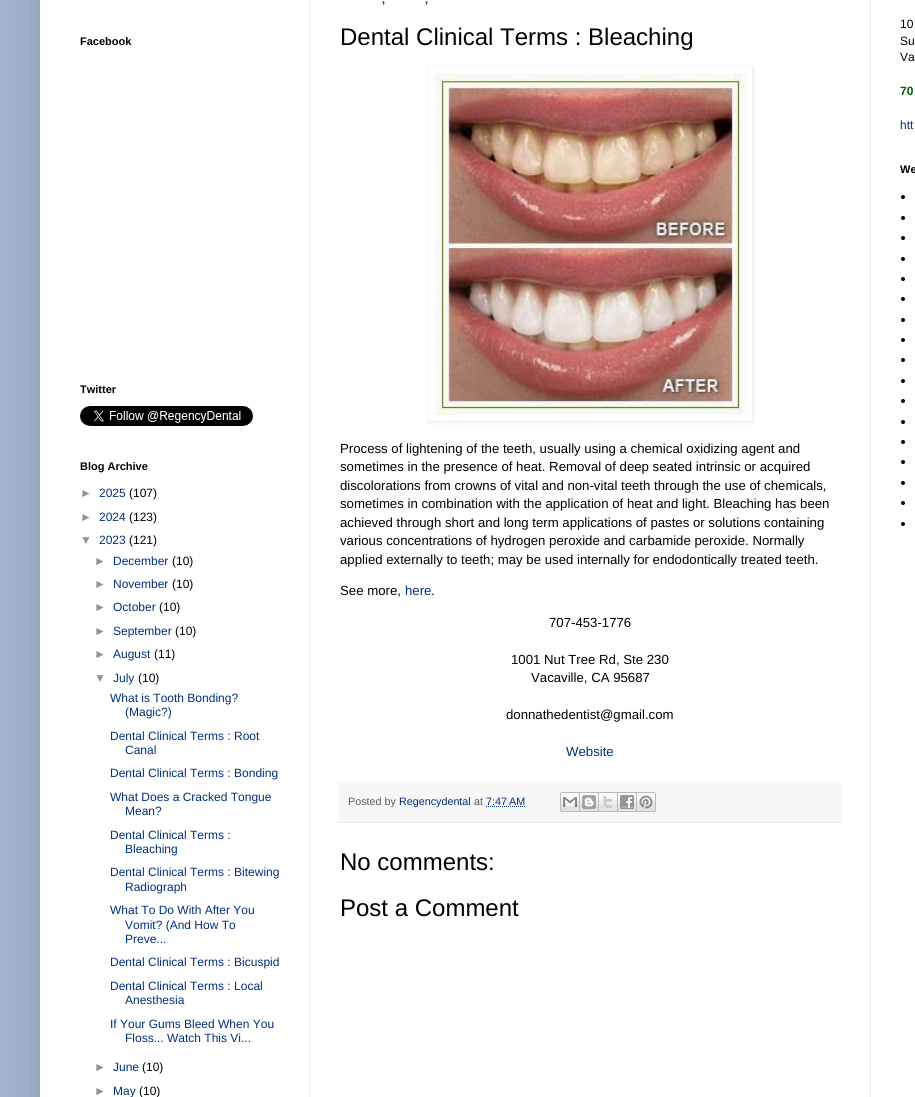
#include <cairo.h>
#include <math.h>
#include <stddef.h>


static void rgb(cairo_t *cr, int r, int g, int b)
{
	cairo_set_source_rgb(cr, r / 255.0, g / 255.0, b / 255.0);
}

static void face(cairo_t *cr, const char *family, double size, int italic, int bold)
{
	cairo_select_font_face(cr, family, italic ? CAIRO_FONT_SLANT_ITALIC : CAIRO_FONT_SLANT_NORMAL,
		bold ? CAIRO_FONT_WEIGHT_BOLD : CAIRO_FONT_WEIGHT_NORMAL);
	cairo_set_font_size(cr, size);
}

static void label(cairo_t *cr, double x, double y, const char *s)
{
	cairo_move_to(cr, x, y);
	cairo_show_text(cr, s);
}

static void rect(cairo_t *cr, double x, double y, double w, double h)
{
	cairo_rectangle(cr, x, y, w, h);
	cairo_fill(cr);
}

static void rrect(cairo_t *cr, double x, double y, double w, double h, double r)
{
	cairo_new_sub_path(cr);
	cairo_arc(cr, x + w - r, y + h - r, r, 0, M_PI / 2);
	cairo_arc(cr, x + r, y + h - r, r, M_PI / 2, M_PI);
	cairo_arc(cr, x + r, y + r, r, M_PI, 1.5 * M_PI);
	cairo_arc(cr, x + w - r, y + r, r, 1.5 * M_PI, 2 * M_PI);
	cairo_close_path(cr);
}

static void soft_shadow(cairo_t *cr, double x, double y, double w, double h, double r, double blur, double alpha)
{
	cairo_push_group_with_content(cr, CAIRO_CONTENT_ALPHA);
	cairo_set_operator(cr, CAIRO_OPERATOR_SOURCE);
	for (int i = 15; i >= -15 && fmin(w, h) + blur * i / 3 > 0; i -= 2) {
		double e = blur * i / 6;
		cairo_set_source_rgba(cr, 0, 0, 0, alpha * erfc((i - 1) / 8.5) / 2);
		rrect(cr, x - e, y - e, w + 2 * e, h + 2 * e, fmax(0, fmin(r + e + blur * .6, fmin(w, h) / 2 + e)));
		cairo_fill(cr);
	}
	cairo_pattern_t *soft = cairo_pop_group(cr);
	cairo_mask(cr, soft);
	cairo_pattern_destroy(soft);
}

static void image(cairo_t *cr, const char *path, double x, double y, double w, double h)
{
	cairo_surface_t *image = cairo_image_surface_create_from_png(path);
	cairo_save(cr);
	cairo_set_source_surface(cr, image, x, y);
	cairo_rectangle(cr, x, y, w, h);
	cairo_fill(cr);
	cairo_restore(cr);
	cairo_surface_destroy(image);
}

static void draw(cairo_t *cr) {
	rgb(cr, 164, 180, 206);
	cairo_paint(cr);
	rgb(cr, 0, 0, 0);
	soft_shadow(cr, 40, -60, 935, 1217, 0, 20, 0.15);
	rgb(cr, 255, 255, 255);
	rect(cr, 40, 0, 875, 1097);
	rgb(cr, 236, 236, 236);
	rect(cr, 309, 0, 1, 1097);
	rect(cr, 870, 0, 1, 1097);
	face(cr, "Liberation Sans", 11, 0, 1);
	rgb(cr, 0, 0, 0);
	label(cr, 80, 45, "Facebook");
	label(cr, 80, 393, "Twitter");
	image(cr, "image0.png", 80, 406, 173, 20);
	label(cr, 80, 470, "Blog Archive");
	face(cr, "Liberation Sans", 12, 0, 0);
	rgb(cr, 148, 148, 148);
	label(cr, 80, 497, "►");
	rgb(cr, 0, 47, 124);
	label(cr, 99, 497, "2025");
	rgb(cr, 0, 0, 0);
	label(cr, 129, 497, "(107)");
	rgb(cr, 148, 148, 148);
	label(cr, 80, 521, "►");
	rgb(cr, 0, 47, 124);
	label(cr, 99, 521, "2024");
	rgb(cr, 0, 0, 0);
	label(cr, 129, 521, "(123)");
	rgb(cr, 148, 148, 148);
	label(cr, 80, 544, "▼");
	rgb(cr, 0, 47, 124);
	label(cr, 99, 544, "2023");
	rgb(cr, 0, 0, 0);
	label(cr, 129, 544, "(121)");
	rgb(cr, 148, 148, 148);
	label(cr, 94, 565, "►");
	rgb(cr, 0, 47, 124);
	label(cr, 113, 565, "December");
	rgb(cr, 0, 0, 0);
	label(cr, 172, 565, "(10)");
	rgb(cr, 148, 148, 148);
	label(cr, 94, 588, "►");
	rgb(cr, 0, 47, 124);
	label(cr, 113, 588, "November");
	rgb(cr, 0, 0, 0);
	label(cr, 172, 588, "(10)");
	rgb(cr, 148, 148, 148);
	label(cr, 94, 611, "►");
	rgb(cr, 0, 47, 124);
	label(cr, 113, 611, "October");
	rgb(cr, 0, 0, 0);
	label(cr, 159, 611, "(10)");
	rgb(cr, 148, 148, 148);
	label(cr, 94, 635, "►");
	rgb(cr, 0, 47, 124);
	label(cr, 113, 635, "September");
	rgb(cr, 0, 0, 0);
	label(cr, 175, 635, "(10)");
	rgb(cr, 148, 148, 148);
	label(cr, 94, 658, "►");
	rgb(cr, 0, 47, 124);
	label(cr, 113, 658, "August");
	rgb(cr, 0, 0, 0);
	label(cr, 154, 658, "(11)");
	rgb(cr, 148, 148, 148);
	label(cr, 94, 682, "▼");
	rgb(cr, 0, 47, 124);
	label(cr, 113, 682, "July");
	rgb(cr, 0, 0, 0);
	label(cr, 138, 682, "(10)");
	rgb(cr, 0, 47, 124);
	label(cr, 110, 702, "What is Tooth Bonding?");
	label(cr, 125, 716, "(Magic?)");
	label(cr, 110, 740, "Dental Clinical Terms : Root");
	label(cr, 125, 754, "Canal");
	label(cr, 110, 777, "Dental Clinical Terms : Bonding");
	label(cr, 110, 801, "What Does a Cracked Tongue");
	label(cr, 125, 815, "Mean?");
	label(cr, 110, 839, "Dental Clinical Terms :");
	label(cr, 125, 853, "Bleaching");
	label(cr, 110, 876, "Dental Clinical Terms : Bitewing");
	label(cr, 125, 891, "Radiograph");
	label(cr, 110, 914, "What To Do With After You");
	label(cr, 125, 929, "Vomit? (And How To");
	label(cr, 125, 943, "Preve...");
	label(cr, 110, 966, "Dental Clinical Terms : Bicuspid");
	label(cr, 110, 990, "Dental Clinical Terms : Local");
	label(cr, 125, 1004, "Anesthesia");
	label(cr, 110, 1028, "If Your Gums Bleed When You");
	label(cr, 125, 1042, "Floss... Watch This Vi...");
	rgb(cr, 148, 148, 148);
	label(cr, 94, 1071, "►");
	rgb(cr, 0, 47, 124);
	label(cr, 113, 1071, "June");
	rgb(cr, 0, 0, 0);
	label(cr, 142, 1071, "(10)");
	rgb(cr, 148, 148, 148);
	label(cr, 94, 1095, "►");
	rgb(cr, 0, 47, 124);
	label(cr, 113, 1095, "May");
	rgb(cr, 0, 0, 0);
	label(cr, 139, 1095, "(10)");
	face(cr, "Liberation Sans", 11, 0, 1);
	rgb(cr, 34, 34, 34);
	label(cr, 382, 3, ",");
	label(cr, 425, 3, ",");
	face(cr, "Liberation Sans", 24, 0, 0);
	rgb(cr, 0, 0, 0);
	label(cr, 340, 45, "Dental Clinical Terms : Bleaching");
	cairo_save(cr);
	cairo_set_fill_rule(cr, CAIRO_FILL_RULE_EVEN_ODD);
	cairo_new_path(cr);
	cairo_move_to(cr, 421, 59);
	cairo_line_to(cr, 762, 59);
	cairo_line_to(cr, 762, 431);
	cairo_line_to(cr, 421, 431);
	cairo_close_path(cr);
	cairo_move_to(cr, 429, 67);
	cairo_line_to(cr, 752, 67);
	cairo_line_to(cr, 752, 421);
	cairo_line_to(cr, 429, 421);
	cairo_close_path(cr);
	cairo_clip(cr);
	rgb(cr, 0, 0, 0);
	soft_shadow(cr, 430, 68, 323, 354, 0, 2.5, 0.1);
	cairo_restore(cr);
	image(cr, "image1.png", 435, 73, 311, 342);
	face(cr, "Liberation Sans", 13.2, 0, 0);
	label(cr, 340, 453, "Process of lightening of the teeth, usually using a chemical oxidizing agent and");
	label(cr, 340, 471, "sometimes in the presence of heat. Removal of deep seated intrinsic or acquired");
	label(cr, 340, 490, "discolorations from crowns of vital and non-vital teeth through the use of chemicals,");
	label(cr, 340, 508, "sometimes in combination with the application of heat and light. Bleaching has been");
	label(cr, 340, 527, "achieved through short and long term applications of pastes or solutions containing");
	label(cr, 340, 545, "various concentrations of hydrogen peroxide and carbamide peroxide. Normally");
	label(cr, 340, 564, "applied externally to teeth; may be used internally for endodontically treated teeth.");
	label(cr, 340, 595, "See more,");
	rgb(cr, 0, 47, 124);
	label(cr, 405, 595, "here");
	rgb(cr, 0, 0, 0);
	label(cr, 431, 595, ".");
	label(cr, 549, 627, "707-453-1776");
	label(cr, 511, 664, "1001 Nut Tree Rd, Ste 230");
	label(cr, 531, 682, "Vacaville, CA 95687");
	label(cr, 506, 719, "donnathedentist@gmail.com");
	rgb(cr, 0, 47, 124);
	label(cr, 566, 756, "Website");
	rgb(cr, 247, 247, 247);
	rect(cr, 338, 782, 504, 40);
	rgb(cr, 236, 236, 236);
	rect(cr, 338, 822, 504, 1);
	face(cr, "Liberation Sans", 10.75, 0, 0);
	rgb(cr, 91, 91, 91);
	label(cr, 348, 805, "Posted by");
	rgb(cr, 0, 47, 124);
	label(cr, 399, 805, "Regencydental");
	rgb(cr, 91, 91, 91);
	label(cr, 474, 805, "at");
	rgb(cr, 0, 47, 124);
	label(cr, 486, 805, "7:47 AM");
	cairo_new_path(cr);
	cairo_move_to(cr, 486, 806.5);
	cairo_line_to(cr, 525.5, 806.5);
	cairo_set_line_width(cr, 1);
	cairo_set_dash(cr, (double[]){1, 1}, 2, 0);
	cairo_stroke(cr);
	image(cr, "image2.png", 560, 792, 20, 20);
	image(cr, "image3.png", 580, 792, 19, 20);
	image(cr, "image4.png", 599, 792, 19, 20);
	image(cr, "image5.png", 618, 792, 19, 20);
	image(cr, "image6.png", 637, 792, 19, 20);
	face(cr, "Liberation Sans", 24, 0, 0);
	rgb(cr, 0, 0, 0);
	label(cr, 340, 870, "No comments:");
	label(cr, 340, 916, "Post a Comment");
	face(cr, "Liberation Sans", 12, 0, 0);
	label(cr, 900, 28, "10");
	label(cr, 900, 45, "Su");
	label(cr, 900, 61, "Va");
	face(cr, "Liberation Sans", 12, 0, 1);
	rgb(cr, 0, 102, 0);
	label(cr, 900, 95, "70");
	face(cr, "Liberation Sans", 12, 0, 0);
	rgb(cr, 0, 47, 124);
	label(cr, 900, 129, "htt");
	face(cr, "Liberation Sans", 11, 0, 1);
	rgb(cr, 0, 0, 0);
	label(cr, 900, 173, "We");
	cairo_new_path(cr);
	cairo_arc(cr, 903, 197, 2, 0, 2 * M_PI);
	cairo_fill(cr);
	cairo_arc(cr, 903, 218, 2, 0, 2 * M_PI);
	cairo_fill(cr);
	cairo_arc(cr, 903, 238, 2, 0, 2 * M_PI);
	cairo_fill(cr);
	cairo_arc(cr, 903, 259, 2, 0, 2 * M_PI);
	cairo_fill(cr);
	cairo_arc(cr, 903, 279, 2, 0, 2 * M_PI);
	cairo_fill(cr);
	cairo_arc(cr, 903, 299, 2, 0, 2 * M_PI);
	cairo_fill(cr);
	cairo_arc(cr, 903, 320, 2, 0, 2 * M_PI);
	cairo_fill(cr);
	cairo_arc(cr, 903, 340, 2, 0, 2 * M_PI);
	cairo_fill(cr);
	cairo_arc(cr, 903, 360, 2, 0, 2 * M_PI);
	cairo_fill(cr);
	cairo_arc(cr, 903, 381, 2, 0, 2 * M_PI);
	cairo_fill(cr);
	cairo_arc(cr, 903, 401, 2, 0, 2 * M_PI);
	cairo_fill(cr);
	cairo_arc(cr, 903, 422, 2, 0, 2 * M_PI);
	cairo_fill(cr);
	cairo_arc(cr, 903, 442, 2, 0, 2 * M_PI);
	cairo_fill(cr);
	cairo_arc(cr, 903, 462, 2, 0, 2 * M_PI);
	cairo_fill(cr);
	cairo_arc(cr, 903, 483, 2, 0, 2 * M_PI);
	cairo_fill(cr);
	cairo_arc(cr, 903, 503, 2, 0, 2 * M_PI);
	cairo_fill(cr);
	cairo_arc(cr, 903, 524, 2, 0, 2 * M_PI);
	cairo_fill(cr);
}

int main(void) {
	cairo_surface_t *surface = cairo_image_surface_create(CAIRO_FORMAT_RGB24, 915, 1097);
	cairo_t *cr = cairo_create(surface);
	cairo_font_options_t *options = cairo_font_options_create();
	cairo_font_options_set_hint_metrics(options, CAIRO_HINT_METRICS_OFF);
	cairo_font_options_set_hint_style(options, CAIRO_HINT_STYLE_NONE);
	cairo_set_font_options(cr, options);
	cairo_set_miter_limit(cr, 4);
	draw(cr);
	cairo_surface_write_to_png(surface, "render.png");
	cairo_font_options_destroy(options);
	cairo_destroy(cr);
	cairo_surface_destroy(surface);
	return 0;
}
